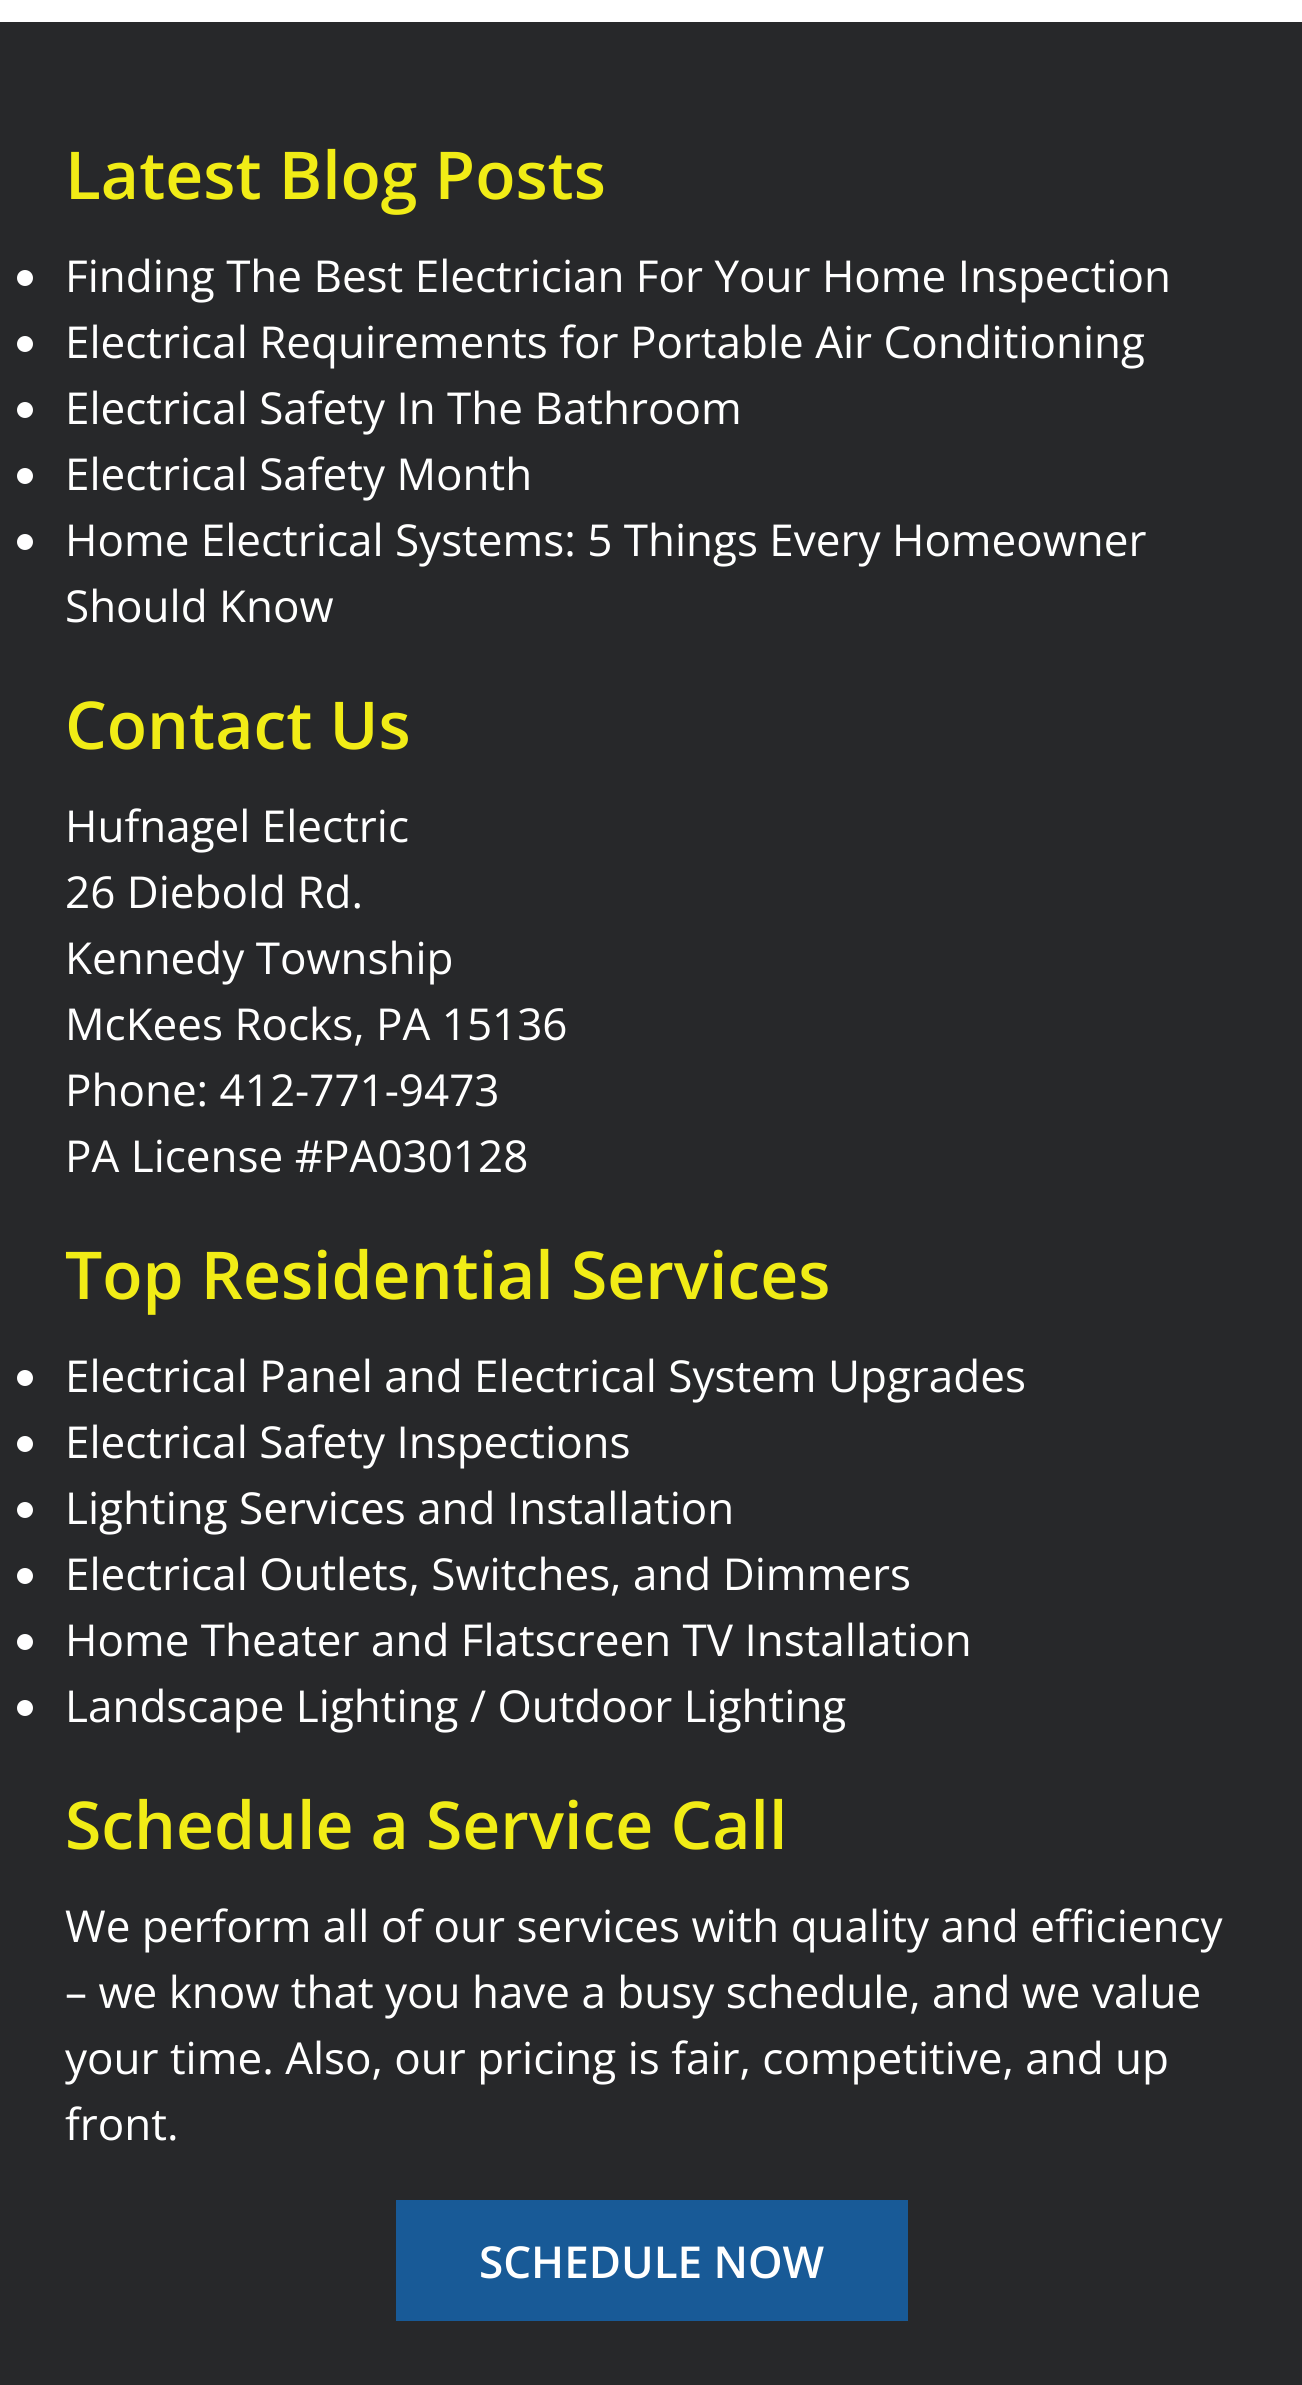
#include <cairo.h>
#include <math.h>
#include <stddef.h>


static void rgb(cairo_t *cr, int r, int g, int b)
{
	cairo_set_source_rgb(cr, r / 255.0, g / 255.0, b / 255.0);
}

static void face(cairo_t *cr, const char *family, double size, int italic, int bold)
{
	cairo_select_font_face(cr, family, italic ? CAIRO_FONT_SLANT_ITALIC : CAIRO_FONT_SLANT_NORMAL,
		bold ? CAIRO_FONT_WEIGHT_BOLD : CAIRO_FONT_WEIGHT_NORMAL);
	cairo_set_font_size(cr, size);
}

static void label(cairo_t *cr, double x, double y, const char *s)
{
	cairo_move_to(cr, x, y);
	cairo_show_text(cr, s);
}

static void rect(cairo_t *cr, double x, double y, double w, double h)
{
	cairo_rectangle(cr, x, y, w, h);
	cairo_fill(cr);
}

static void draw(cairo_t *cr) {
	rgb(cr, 255, 255, 255);
	cairo_paint(cr);
	rgb(cr, 39, 40, 42);
	rect(cr, 0, 22, 1302, 2363);
	face(cr, "Open Sans SemiBold", 66, 0, 0);
	rgb(cr, 241, 236, 22);
	label(cr, 65, 199, "Latest Blog Posts");
	rgb(cr, 255, 255, 255);
	cairo_new_path(cr);
	cairo_arc(cr, 25, 278, 8, 0, 2 * M_PI);
	cairo_fill(cr);
	face(cr, "Open Sans", 44, 0, 0);
	label(cr, 65, 292, "Finding The Best Electrician For Your Home Inspection");
	cairo_new_path(cr);
	cairo_arc(cr, 25, 344, 8, 0, 2 * M_PI);
	cairo_fill(cr);
	label(cr, 65, 358, "Electrical Requirements for Portable Air Conditioning");
	cairo_new_path(cr);
	cairo_arc(cr, 25, 410, 8, 0, 2 * M_PI);
	cairo_fill(cr);
	label(cr, 65, 424, "Electrical Safety In The Bathroom");
	cairo_new_path(cr);
	cairo_arc(cr, 25, 476, 8, 0, 2 * M_PI);
	cairo_fill(cr);
	label(cr, 65, 490, "Electrical Safety Month");
	cairo_new_path(cr);
	cairo_arc(cr, 25, 542, 8, 0, 2 * M_PI);
	cairo_fill(cr);
	label(cr, 65, 556, "Home Electrical Systems: 5 Things Every Homeowner");
	label(cr, 65, 622, "Should Know");
	face(cr, "Open Sans SemiBold", 66, 0, 0);
	rgb(cr, 241, 236, 22);
	label(cr, 65, 749, "Contact Us");
	face(cr, "Open Sans", 44, 0, 0);
	rgb(cr, 255, 255, 255);
	label(cr, 65, 842, "Hufnagel Electric");
	label(cr, 65, 908, "26 Diebold Rd.");
	label(cr, 65, 974, "Kennedy Township");
	label(cr, 65, 1040, "McKees Rocks, PA 15136");
	label(cr, 65, 1106, "Phone: 412-771-9473");
	label(cr, 65, 1172, "PA License #PA030128");
	face(cr, "Open Sans SemiBold", 66, 0, 0);
	rgb(cr, 241, 236, 22);
	label(cr, 65, 1299, "Top Residential Services");
	rgb(cr, 255, 255, 255);
	cairo_new_path(cr);
	cairo_arc(cr, 25, 1378, 8, 0, 2 * M_PI);
	cairo_fill(cr);
	face(cr, "Open Sans", 44, 0, 0);
	label(cr, 65, 1392, "Electrical Panel and Electrical System Upgrades");
	cairo_new_path(cr);
	cairo_arc(cr, 25, 1444, 8, 0, 2 * M_PI);
	cairo_fill(cr);
	label(cr, 65, 1458, "Electrical Safety Inspections");
	cairo_new_path(cr);
	cairo_arc(cr, 25, 1510, 8, 0, 2 * M_PI);
	cairo_fill(cr);
	label(cr, 65, 1524, "Lighting Services and Installation");
	cairo_new_path(cr);
	cairo_arc(cr, 25, 1576, 8, 0, 2 * M_PI);
	cairo_fill(cr);
	label(cr, 65, 1590, "Electrical Outlets, Switches, and Dimmers");
	cairo_new_path(cr);
	cairo_arc(cr, 25, 1642, 8, 0, 2 * M_PI);
	cairo_fill(cr);
	label(cr, 65, 1656, "Home Theater and Flatscreen TV Installation");
	cairo_new_path(cr);
	cairo_arc(cr, 25, 1708, 8, 0, 2 * M_PI);
	cairo_fill(cr);
	label(cr, 65, 1722, "Landscape Lighting / Outdoor Lighting");
	face(cr, "Open Sans SemiBold", 66, 0, 0);
	rgb(cr, 241, 236, 22);
	label(cr, 65, 1849, "Schedule a Service Call");
	face(cr, "Open Sans", 44, 0, 0);
	rgb(cr, 255, 255, 255);
	label(cr, 65, 1942, "We perform all of our services with quality and efficiency");
	label(cr, 65, 2008, "– we know that you have a busy schedule, and we value");
	label(cr, 65, 2074, "your time. Also, our pricing is fair, competitive, and up");
	label(cr, 65, 2140, "front.");
	rgb(cr, 24, 90, 151);
	rect(cr, 396, 2200, 512, 121);
	face(cr, "Open Sans SemiBold", 44, 0, 0);
	rgb(cr, 255, 255, 255);
	label(cr, 479, 2278, "SCHEDULE NOW");
}

int main(void) {
	cairo_surface_t *surface = cairo_image_surface_create(CAIRO_FORMAT_RGB24, 1302, 2385);
	cairo_t *cr = cairo_create(surface);
	cairo_font_options_t *options = cairo_font_options_create();
	cairo_font_options_set_hint_metrics(options, CAIRO_HINT_METRICS_OFF);
	cairo_font_options_set_hint_style(options, CAIRO_HINT_STYLE_NONE);
	cairo_set_font_options(cr, options);
	cairo_set_miter_limit(cr, 4);
	draw(cr);
	cairo_surface_write_to_png(surface, "render.png");
	cairo_font_options_destroy(options);
	cairo_destroy(cr);
	cairo_surface_destroy(surface);
	return 0;
}
